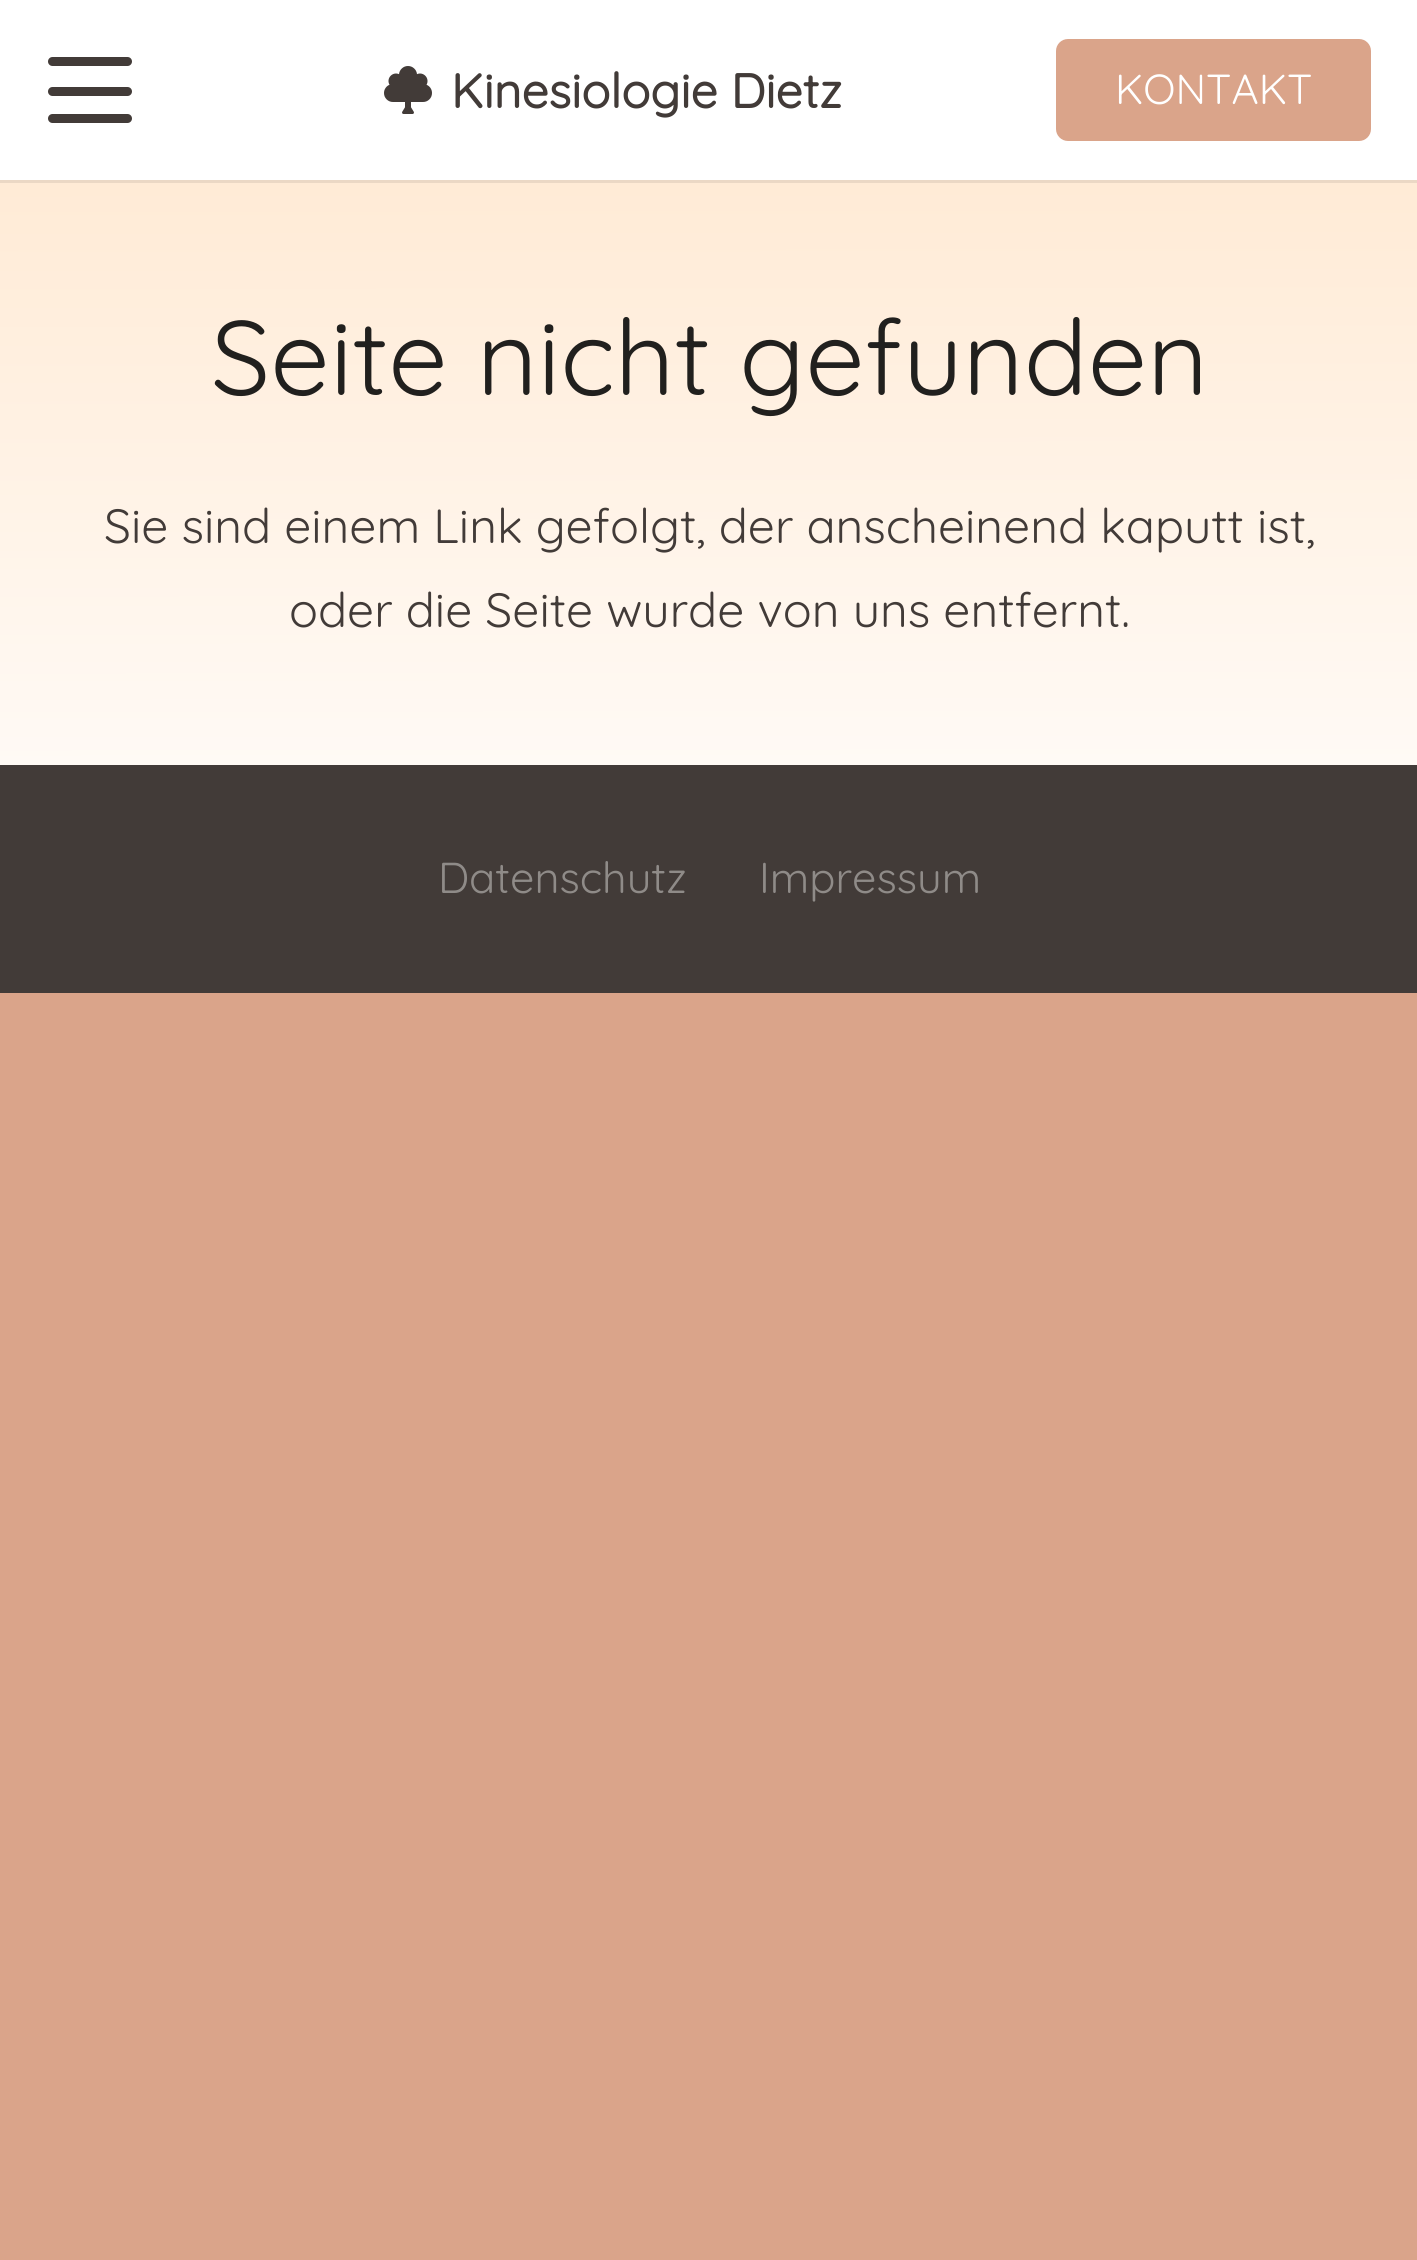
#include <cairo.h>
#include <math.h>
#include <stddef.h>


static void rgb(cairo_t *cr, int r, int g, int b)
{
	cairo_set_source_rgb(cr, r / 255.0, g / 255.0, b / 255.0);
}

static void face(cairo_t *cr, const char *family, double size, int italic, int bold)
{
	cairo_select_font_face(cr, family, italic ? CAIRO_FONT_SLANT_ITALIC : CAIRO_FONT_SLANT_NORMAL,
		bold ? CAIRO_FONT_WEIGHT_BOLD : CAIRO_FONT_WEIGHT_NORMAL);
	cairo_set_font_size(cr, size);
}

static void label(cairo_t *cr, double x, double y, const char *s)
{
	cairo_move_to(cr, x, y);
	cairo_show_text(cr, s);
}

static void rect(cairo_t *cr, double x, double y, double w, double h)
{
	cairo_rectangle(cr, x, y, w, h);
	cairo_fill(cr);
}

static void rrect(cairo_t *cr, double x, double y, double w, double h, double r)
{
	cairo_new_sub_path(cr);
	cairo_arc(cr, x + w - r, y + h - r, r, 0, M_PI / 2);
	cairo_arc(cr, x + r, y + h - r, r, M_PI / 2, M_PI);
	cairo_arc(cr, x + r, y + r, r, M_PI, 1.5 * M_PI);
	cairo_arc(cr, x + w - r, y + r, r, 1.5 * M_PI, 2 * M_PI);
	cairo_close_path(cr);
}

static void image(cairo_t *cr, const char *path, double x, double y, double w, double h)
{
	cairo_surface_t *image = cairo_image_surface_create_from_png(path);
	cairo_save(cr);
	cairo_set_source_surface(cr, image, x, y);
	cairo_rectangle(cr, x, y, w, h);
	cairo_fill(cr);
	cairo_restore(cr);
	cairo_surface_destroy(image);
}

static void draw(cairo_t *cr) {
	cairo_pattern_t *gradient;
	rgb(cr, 218, 164, 138);
	cairo_paint(cr);
	gradient = cairo_pattern_create_linear(709, 0, 710, 765);
	cairo_pattern_add_color_stop_rgba(gradient, 0, 1, 0.902, 0.8, 1);
	cairo_pattern_add_color_stop_rgba(gradient, 1, 1, 0.98, 0.961, 1);
	cairo_set_source(cr, gradient);
	cairo_pattern_destroy(gradient);
	rect(cr, 0, 183, 1417, 582);
	rgb(cr, 235, 216, 197);
	rect(cr, 0, 180, 1417, 3);
	rgb(cr, 255, 255, 255);
	rect(cr, 0, 0, 1417, 180);
	rgb(cr, 66, 59, 56);
	rrect(cr, 48, 87, 84, 9, 4.5);
	cairo_fill(cr);
	rrect(cr, 48, 57, 84, 9, 4.5);
	cairo_fill(cr);
	rrect(cr, 48, 114, 84, 9, 4.5);
	cairo_fill(cr);
	image(cr, "image0.png", 384, 66, 48, 48);
	face(cr, "Quicksand", 48, 0, 1);
	label(cr, 451, 108, "Kinesiologie Dietz");
	rgb(cr, 218, 164, 138);
	rrect(cr, 1056, 39, 315, 102, 12);
	cairo_fill(cr);
	face(cr, "Quicksand Light", 42, 0, 0);
	rgb(cr, 255, 255, 255);
	label(cr, 1115, 104, "KONTAKT");
	face(cr, "Quicksand Light", 105.5, 0, 0);
	rgb(cr, 33, 32, 30);
	label(cr, 211, 395, "Seite nicht gefunden");
	face(cr, "Quicksand Light", 48, 0, 0);
	rgb(cr, 66, 59, 56);
	label(cr, 104, 543, "Sie sind einem Link gefolgt, der anscheinend kaputt ist,");
	label(cr, 289, 627, "oder die Seite wurde von uns entfernt.");
	rect(cr, 0, 765, 1417, 228);
	face(cr, "Quicksand Light", 43.25, 0, 0);
	rgb(cr, 143, 139, 136);
	label(cr, 438, 893, "Datenschutz");
	label(cr, 759, 893, "Impressum");
}

int main(void) {
	cairo_surface_t *surface = cairo_image_surface_create(CAIRO_FORMAT_RGB24, 1417, 2260);
	cairo_t *cr = cairo_create(surface);
	cairo_font_options_t *options = cairo_font_options_create();
	cairo_font_options_set_hint_metrics(options, CAIRO_HINT_METRICS_OFF);
	cairo_font_options_set_hint_style(options, CAIRO_HINT_STYLE_NONE);
	cairo_set_font_options(cr, options);
	cairo_set_miter_limit(cr, 4);
	draw(cr);
	cairo_surface_write_to_png(surface, "render.png");
	cairo_font_options_destroy(options);
	cairo_destroy(cr);
	cairo_surface_destroy(surface);
	return 0;
}
